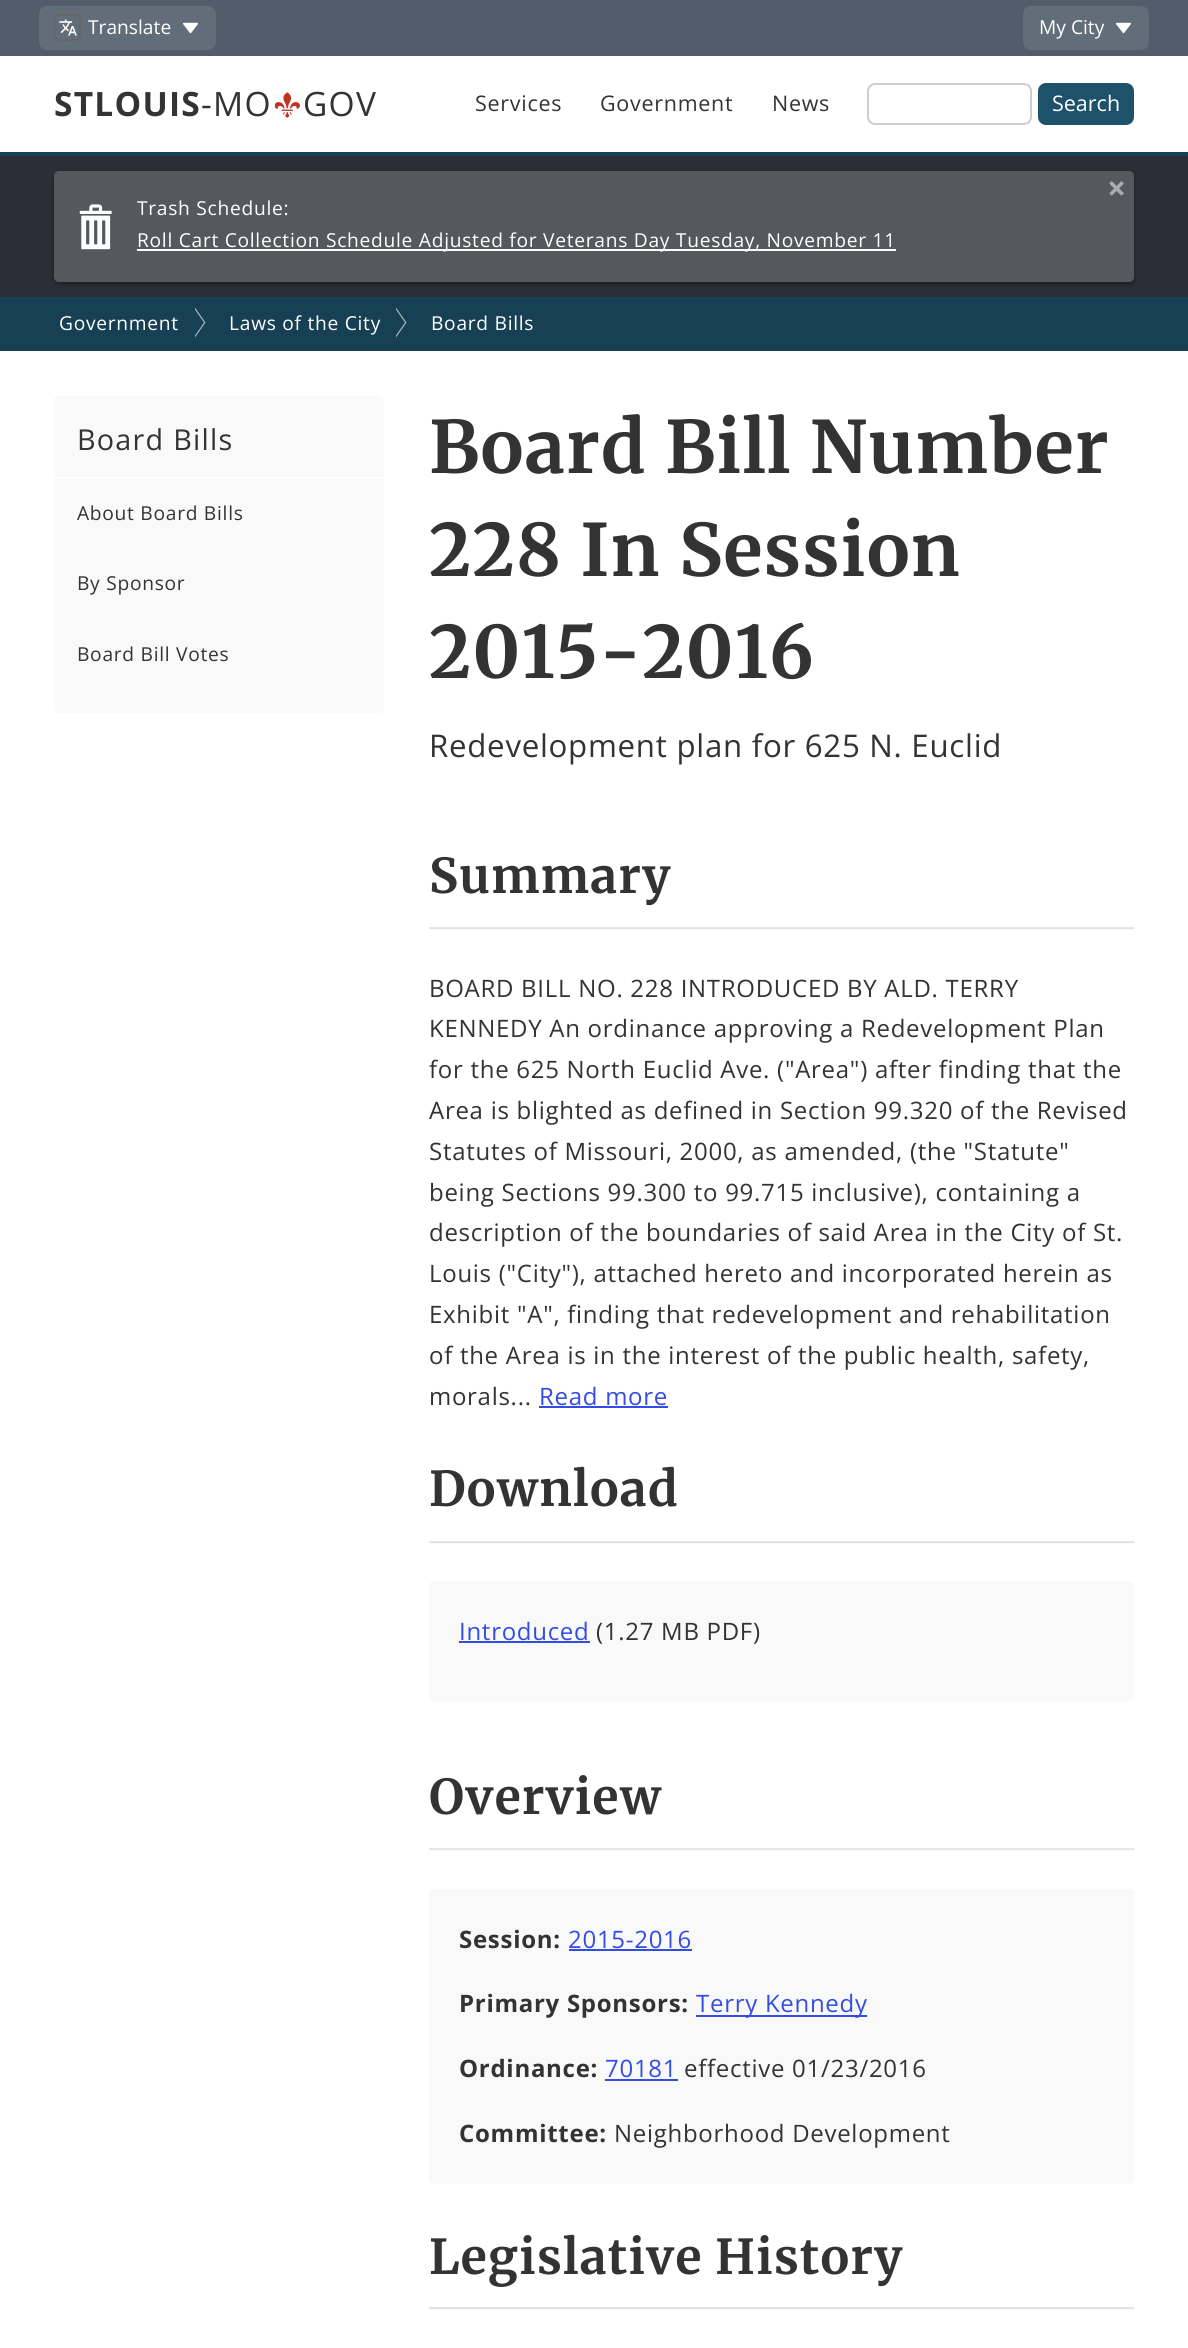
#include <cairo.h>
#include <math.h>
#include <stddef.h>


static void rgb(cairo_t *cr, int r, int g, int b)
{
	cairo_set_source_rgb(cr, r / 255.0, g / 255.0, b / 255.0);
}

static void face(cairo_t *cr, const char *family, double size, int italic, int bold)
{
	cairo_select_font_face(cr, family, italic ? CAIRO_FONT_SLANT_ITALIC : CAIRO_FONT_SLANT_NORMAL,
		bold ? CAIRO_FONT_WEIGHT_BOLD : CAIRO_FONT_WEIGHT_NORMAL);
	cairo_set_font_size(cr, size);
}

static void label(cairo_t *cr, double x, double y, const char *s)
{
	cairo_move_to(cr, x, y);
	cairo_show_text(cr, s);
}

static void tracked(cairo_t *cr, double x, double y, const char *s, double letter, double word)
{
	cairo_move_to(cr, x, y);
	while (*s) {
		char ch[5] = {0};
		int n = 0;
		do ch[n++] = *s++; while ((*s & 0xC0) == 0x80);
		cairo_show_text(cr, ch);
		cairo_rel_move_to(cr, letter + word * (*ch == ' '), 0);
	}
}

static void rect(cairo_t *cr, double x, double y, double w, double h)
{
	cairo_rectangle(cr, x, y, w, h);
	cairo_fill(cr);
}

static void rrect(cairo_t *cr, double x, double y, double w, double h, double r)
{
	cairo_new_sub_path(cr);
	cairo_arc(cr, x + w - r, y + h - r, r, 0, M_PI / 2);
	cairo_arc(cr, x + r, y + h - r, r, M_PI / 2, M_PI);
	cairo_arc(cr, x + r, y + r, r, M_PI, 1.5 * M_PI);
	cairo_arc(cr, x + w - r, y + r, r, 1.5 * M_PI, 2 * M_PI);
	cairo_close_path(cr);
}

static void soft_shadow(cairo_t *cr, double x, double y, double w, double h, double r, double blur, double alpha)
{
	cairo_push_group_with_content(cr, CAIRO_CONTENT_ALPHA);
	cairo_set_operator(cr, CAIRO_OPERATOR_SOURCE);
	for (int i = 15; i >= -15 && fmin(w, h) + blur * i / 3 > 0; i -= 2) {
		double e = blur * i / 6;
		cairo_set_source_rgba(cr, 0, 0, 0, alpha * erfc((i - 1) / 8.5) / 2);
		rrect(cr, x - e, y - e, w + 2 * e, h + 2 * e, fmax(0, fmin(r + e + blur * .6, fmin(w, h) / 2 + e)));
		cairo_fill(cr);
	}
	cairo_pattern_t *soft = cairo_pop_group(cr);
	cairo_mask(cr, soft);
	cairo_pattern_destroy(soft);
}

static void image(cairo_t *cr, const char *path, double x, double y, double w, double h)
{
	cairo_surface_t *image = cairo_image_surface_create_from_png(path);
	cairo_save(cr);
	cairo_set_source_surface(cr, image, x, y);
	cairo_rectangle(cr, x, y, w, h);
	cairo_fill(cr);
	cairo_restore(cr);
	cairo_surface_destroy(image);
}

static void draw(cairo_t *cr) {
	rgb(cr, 255, 255, 255);
	cairo_paint(cr);
	rgb(cr, 230, 230, 230);
	rect(cr, 429, 1541, 705, 1);
	rect(cr, 429, 927, 705, 1);
	rect(cr, 429, 2307, 705, 1);
	rgb(cr, 81, 93, 107);
	rect(cr, 0, 0, 1188, 56);
	rgb(cr, 98, 109, 122);
	rrect(cr, 39, 6, 177, 44, 8);
	cairo_fill(cr);
	image(cr, "image0.png", 183, 22, 15, 12);
	image(cr, "image1.png", 59, 19, 18, 17);
	rrect(cr, 55, 15, 25, 25, 4);
	rgb(cr, 102, 102, 102);
	cairo_stroke(cr);
	face(cr, "Open Sans", 19.2, 0, 0);
	rgb(cr, 255, 255, 255);
	label(cr, 88, 34, "Translate");
	rgb(cr, 98, 109, 122);
	rrect(cr, 1023, 6, 126, 44, 8);
	cairo_fill(cr);
	image(cr, "image0.png", 1116, 22, 15, 12);
	rgb(cr, 255, 255, 255);
	label(cr, 1039, 34, "My City");
	rgb(cr, 23, 64, 84);
	rect(cr, 0, 152, 1188, 4);
	face(cr, "Open Sans", 33.5, 0, 1);
	rgb(cr, 51, 51, 51);
	tracked(cr, 54, 116, "STLOUIS", 1.25, 0);
	face(cr, "Open Sans", 33.5, 0, 0);
	tracked(cr, 201, 116, "-MO", 1.25, 0);
	image(cr, "image2.png", 275, 92, 25, 26);
	tracked(cr, 303, 116, "GOV", 1.25, 0);
	face(cr, "Open Sans", 21.5, 0, 0);
	tracked(cr, 475, 111, "Services", 0.72, 0);
	tracked(cr, 600, 111, "Government", 0.72, 0);
	tracked(cr, 772, 111, "News", 0.72, 0);
	rrect(cr, 868, 84, 163, 40, 7);
	rgb(cr, 206, 206, 206);
	cairo_stroke(cr);
	rgb(cr, 30, 82, 107);
	rrect(cr, 1039, 84, 94, 40, 7);
	cairo_fill_preserve(cr);
	cairo_stroke(cr);
	rgb(cr, 255, 255, 255);
	label(cr, 1052, 111, "Search");
	rgb(cr, 41, 47, 54);
	rect(cr, 0, 156, 1188, 141);
	cairo_save(cr);
	cairo_set_fill_rule(cr, CAIRO_FILL_RULE_EVEN_ODD);
	cairo_new_path(cr);
	cairo_move_to(cr, 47, 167);
	cairo_line_to(cr, 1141, 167);
	cairo_line_to(cr, 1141, 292);
	cairo_line_to(cr, 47, 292);
	cairo_close_path(cr);
	cairo_move_to(cr, 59, 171);
	cairo_line_to(cr, 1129, 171);
	cairo_curve_to(cr, 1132, 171, 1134, 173, 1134, 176);
	cairo_line_to(cr, 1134, 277);
	cairo_curve_to(cr, 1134, 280, 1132, 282, 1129, 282);
	cairo_line_to(cr, 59, 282);
	cairo_curve_to(cr, 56, 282, 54, 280, 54, 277);
	cairo_line_to(cr, 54, 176);
	cairo_curve_to(cr, 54, 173, 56, 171, 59, 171);
	cairo_close_path(cr);
	cairo_clip(cr);
	rgb(cr, 0, 0, 0);
	soft_shadow(cr, 54, 174, 1080, 111, 5, 2, 0.3);
	cairo_restore(cr);
	cairo_set_source_rgba(cr, 1, 1, 1, 0.2);
	rrect(cr, 54, 171, 1080, 111, 5);
	cairo_fill(cr);
	image(cr, "image3.png", 1109, 181, 15, 15);
	image(cr, "image4.png", 79, 204, 33, 46);
	face(cr, "Open Sans", 19.2, 0, 0);
	rgb(cr, 255, 255, 255);
	tracked(cr, 137, 215, "Trash Schedule:", 0.72, 0);
	rect(cr, 137, 249, 759, 2);
	tracked(cr, 137, 247, "Roll Cart Collection Schedule Adjusted for Veterans Day Tuesday, November 11", 0.72, 0);
	rgb(cr, 23, 64, 84);
	rect(cr, 0, 297, 1188, 54);
	rgb(cr, 162, 179, 187);
	cairo_new_path(cr);
	cairo_move_to(cr, 195, 337.5);
	cairo_line_to(cr, 195, 307.5);
	cairo_line_to(cr, 205.5, 322.5);
	cairo_close_path(cr);
	cairo_fill(cr);
	rgb(cr, 23, 64, 84);
	cairo_new_path(cr);
	cairo_move_to(cr, 193.5, 337.5);
	cairo_line_to(cr, 193.5, 307.5);
	cairo_line_to(cr, 204, 322.5);
	cairo_close_path(cr);
	cairo_fill(cr);
	rgb(cr, 255, 255, 255);
	tracked(cr, 59, 330, "Government", 0.72, 0);
	rgb(cr, 162, 179, 187);
	cairo_new_path(cr);
	cairo_move_to(cr, 396, 337.5);
	cairo_line_to(cr, 396, 307.5);
	cairo_line_to(cr, 406.5, 322.5);
	cairo_close_path(cr);
	cairo_fill(cr);
	rgb(cr, 23, 64, 84);
	cairo_new_path(cr);
	cairo_move_to(cr, 394.5, 337.5);
	cairo_line_to(cr, 394.5, 307.5);
	cairo_line_to(cr, 405, 322.5);
	cairo_close_path(cr);
	cairo_fill(cr);
	rgb(cr, 255, 255, 255);
	tracked(cr, 229, 330, "Laws of the City", 0.72, 0);
	tracked(cr, 431, 330, "Board Bills", 0.72, 0);
	rgb(cr, 249, 249, 249);
	rrect(cr, 54, 396, 330, 317, 5);
	cairo_fill(cr);
	rgb(cr, 255, 255, 255);
	rect(cr, 54, 477, 330, 2);
	face(cr, "Open Sans", 28.75, 0, 0);
	rgb(cr, 51, 51, 51);
	tracked(cr, 77, 450, "Board Bills", 1.25, 0);
	face(cr, "Open Sans", 19.2, 0, 0);
	tracked(cr, 77, 520, "About Board Bills", 0.72, 0);
	tracked(cr, 77, 590, "By Sponsor", 0.72, 0);
	tracked(cr, 77, 661, "Board Bill Votes", 0.72, 0);
	face(cr, "Merriweather", 72, 0, 1);
	tracked(cr, 429, 473, "Board Bill Number", 1.25, 0);
	tracked(cr, 429, 576, "228 In Session", 1.25, 0);
	tracked(cr, 429, 678, "2015-2016", 1.25, 0);
	face(cr, "Open Sans", 31.25, 0, 0);
	tracked(cr, 429, 757, "Redevelopment plan for 625 N. Euclid", 0.72, 0);
	rgb(cr, 250, 250, 250);
	rect(cr, 429, 929, 705, 1);
	rgb(cr, 225, 225, 225);
	rect(cr, 429, 928, 705, 1);
	face(cr, "Merriweather", 48, 0, 1);
	rgb(cr, 51, 51, 51);
	tracked(cr, 429, 893, "Summary", 1.25, 0);
	face(cr, "Open Sans", 24, 0, 0);
	tracked(cr, 429, 997, "BOARD BILL NO. 228 INTRODUCED BY ALD. TERRY", 0.72, 0);
	tracked(cr, 429, 1037, "KENNEDY An ordinance approving a Redevelopment Plan", 0.72, 0);
	tracked(cr, 429, 1078, "for the 625 North Euclid Ave. (\"Area\") after finding that the", 0.72, 0);
	tracked(cr, 429, 1119, "Area is blighted as defined in Section 99.320 of the Revised", 0.72, 0);
	tracked(cr, 429, 1160, "Statutes of Missouri, 2000, as amended, (the \"Statute\"", 0.72, 0);
	tracked(cr, 429, 1201, "being Sections 99.300 to 99.715 inclusive), containing a", 0.72, 0);
	tracked(cr, 429, 1241, "description of the boundaries of said Area in the City of St.", 0.72, 0);
	tracked(cr, 429, 1282, "Louis (\"City\"), attached hereto and incorporated herein as", 0.72, 0);
	tracked(cr, 429, 1323, "Exhibit \"A\", finding that redevelopment and rehabilitation", 0.72, 0);
	tracked(cr, 429, 1364, "of the Area is in the interest of the public health, safety,", 0.72, 0);
	tracked(cr, 429, 1405, "morals...", 0.72, 0);
	rgb(cr, 51, 76, 228);
	tracked(cr, 539, 1405, "Read more", 0.72, 0);
	rect(cr, 539, 1406, 129, 2);
	rgb(cr, 250, 250, 250);
	rect(cr, 429, 1543, 705, 1);
	rgb(cr, 225, 225, 225);
	rect(cr, 429, 1542, 705, 1);
	face(cr, "Merriweather", 48, 0, 1);
	rgb(cr, 51, 51, 51);
	tracked(cr, 429, 1506, "Download", 1.25, 0);
	rgb(cr, 249, 249, 249);
	rrect(cr, 429, 1581, 705, 120, 5);
	cairo_fill(cr);
	face(cr, "Open Sans", 24, 0, 0);
	rgb(cr, 51, 76, 228);
	tracked(cr, 459, 1640, "Introduced", 0.72, 0);
	rect(cr, 459, 1641, 131, 2);
	rgb(cr, 51, 51, 51);
	tracked(cr, 596, 1640, "(1.27 MB PDF)", 0.72, 0);
	rgb(cr, 250, 250, 250);
	rect(cr, 429, 1850, 705, 1);
	rgb(cr, 230, 230, 230);
	rect(cr, 429, 1848, 705, 2);
	face(cr, "Merriweather", 48, 0, 1);
	rgb(cr, 51, 51, 51);
	tracked(cr, 429, 1814, "Overview", 1.25, 0);
	rgb(cr, 249, 249, 249);
	rrect(cr, 429, 1889, 705, 295, 5);
	cairo_fill(cr);
	face(cr, "Open Sans", 24, 0, 1);
	rgb(cr, 51, 51, 51);
	tracked(cr, 459, 1948, "Session:", 0.72, 0);
	face(cr, "Open Sans", 24, 0, 0);
	rgb(cr, 51, 76, 228);
	tracked(cr, 568, 1948, "2015-2016", 0.72, 0);
	rect(cr, 569, 1949, 123, 2);
	face(cr, "Open Sans", 24, 0, 1);
	rgb(cr, 51, 51, 51);
	tracked(cr, 459, 2012, "Primary Sponsors:", 0.72, 0);
	rgb(cr, 51, 76, 228);
	rect(cr, 696, 2015, 171, 2);
	face(cr, "Open Sans", 24, 0, 0);
	tracked(cr, 696, 2012, "Terry Kennedy", 0.72, 0);
	face(cr, "Open Sans", 24, 0, 1);
	rgb(cr, 51, 51, 51);
	tracked(cr, 459, 2077, "Ordinance:", 0.72, 0);
	face(cr, "Open Sans", 24, 0, 0);
	rgb(cr, 51, 76, 228);
	tracked(cr, 605, 2077, "70181", 0.72, 0);
	rect(cr, 605, 2079, 73, 2);
	rgb(cr, 51, 51, 51);
	tracked(cr, 684, 2077, "effective 01/23/2016", 0.72, 0);
	face(cr, "Open Sans", 24, 0, 1);
	tracked(cr, 459, 2142, "Committee:", 0.72, 0);
	face(cr, "Open Sans", 24, 0, 0);
	tracked(cr, 614, 2142, "Neighborhood Development", 0.72, 0);
	rgb(cr, 250, 250, 250);
	rect(cr, 429, 2309, 705, 1);
	rgb(cr, 225, 225, 225);
	rect(cr, 429, 2308, 705, 1);
	face(cr, "Merriweather", 48, 0, 1);
	rgb(cr, 51, 51, 51);
	tracked(cr, 429, 2274, "Legislative History", 1.25, 0);
}

int main(void) {
	cairo_surface_t *surface = cairo_image_surface_create(CAIRO_FORMAT_RGB24, 1188, 2348);
	cairo_t *cr = cairo_create(surface);
	cairo_font_options_t *options = cairo_font_options_create();
	cairo_font_options_set_hint_metrics(options, CAIRO_HINT_METRICS_OFF);
	cairo_font_options_set_hint_style(options, CAIRO_HINT_STYLE_NONE);
	cairo_set_font_options(cr, options);
	cairo_set_miter_limit(cr, 4);
	draw(cr);
	cairo_surface_write_to_png(surface, "render.png");
	cairo_font_options_destroy(options);
	cairo_destroy(cr);
	cairo_surface_destroy(surface);
	return 0;
}
